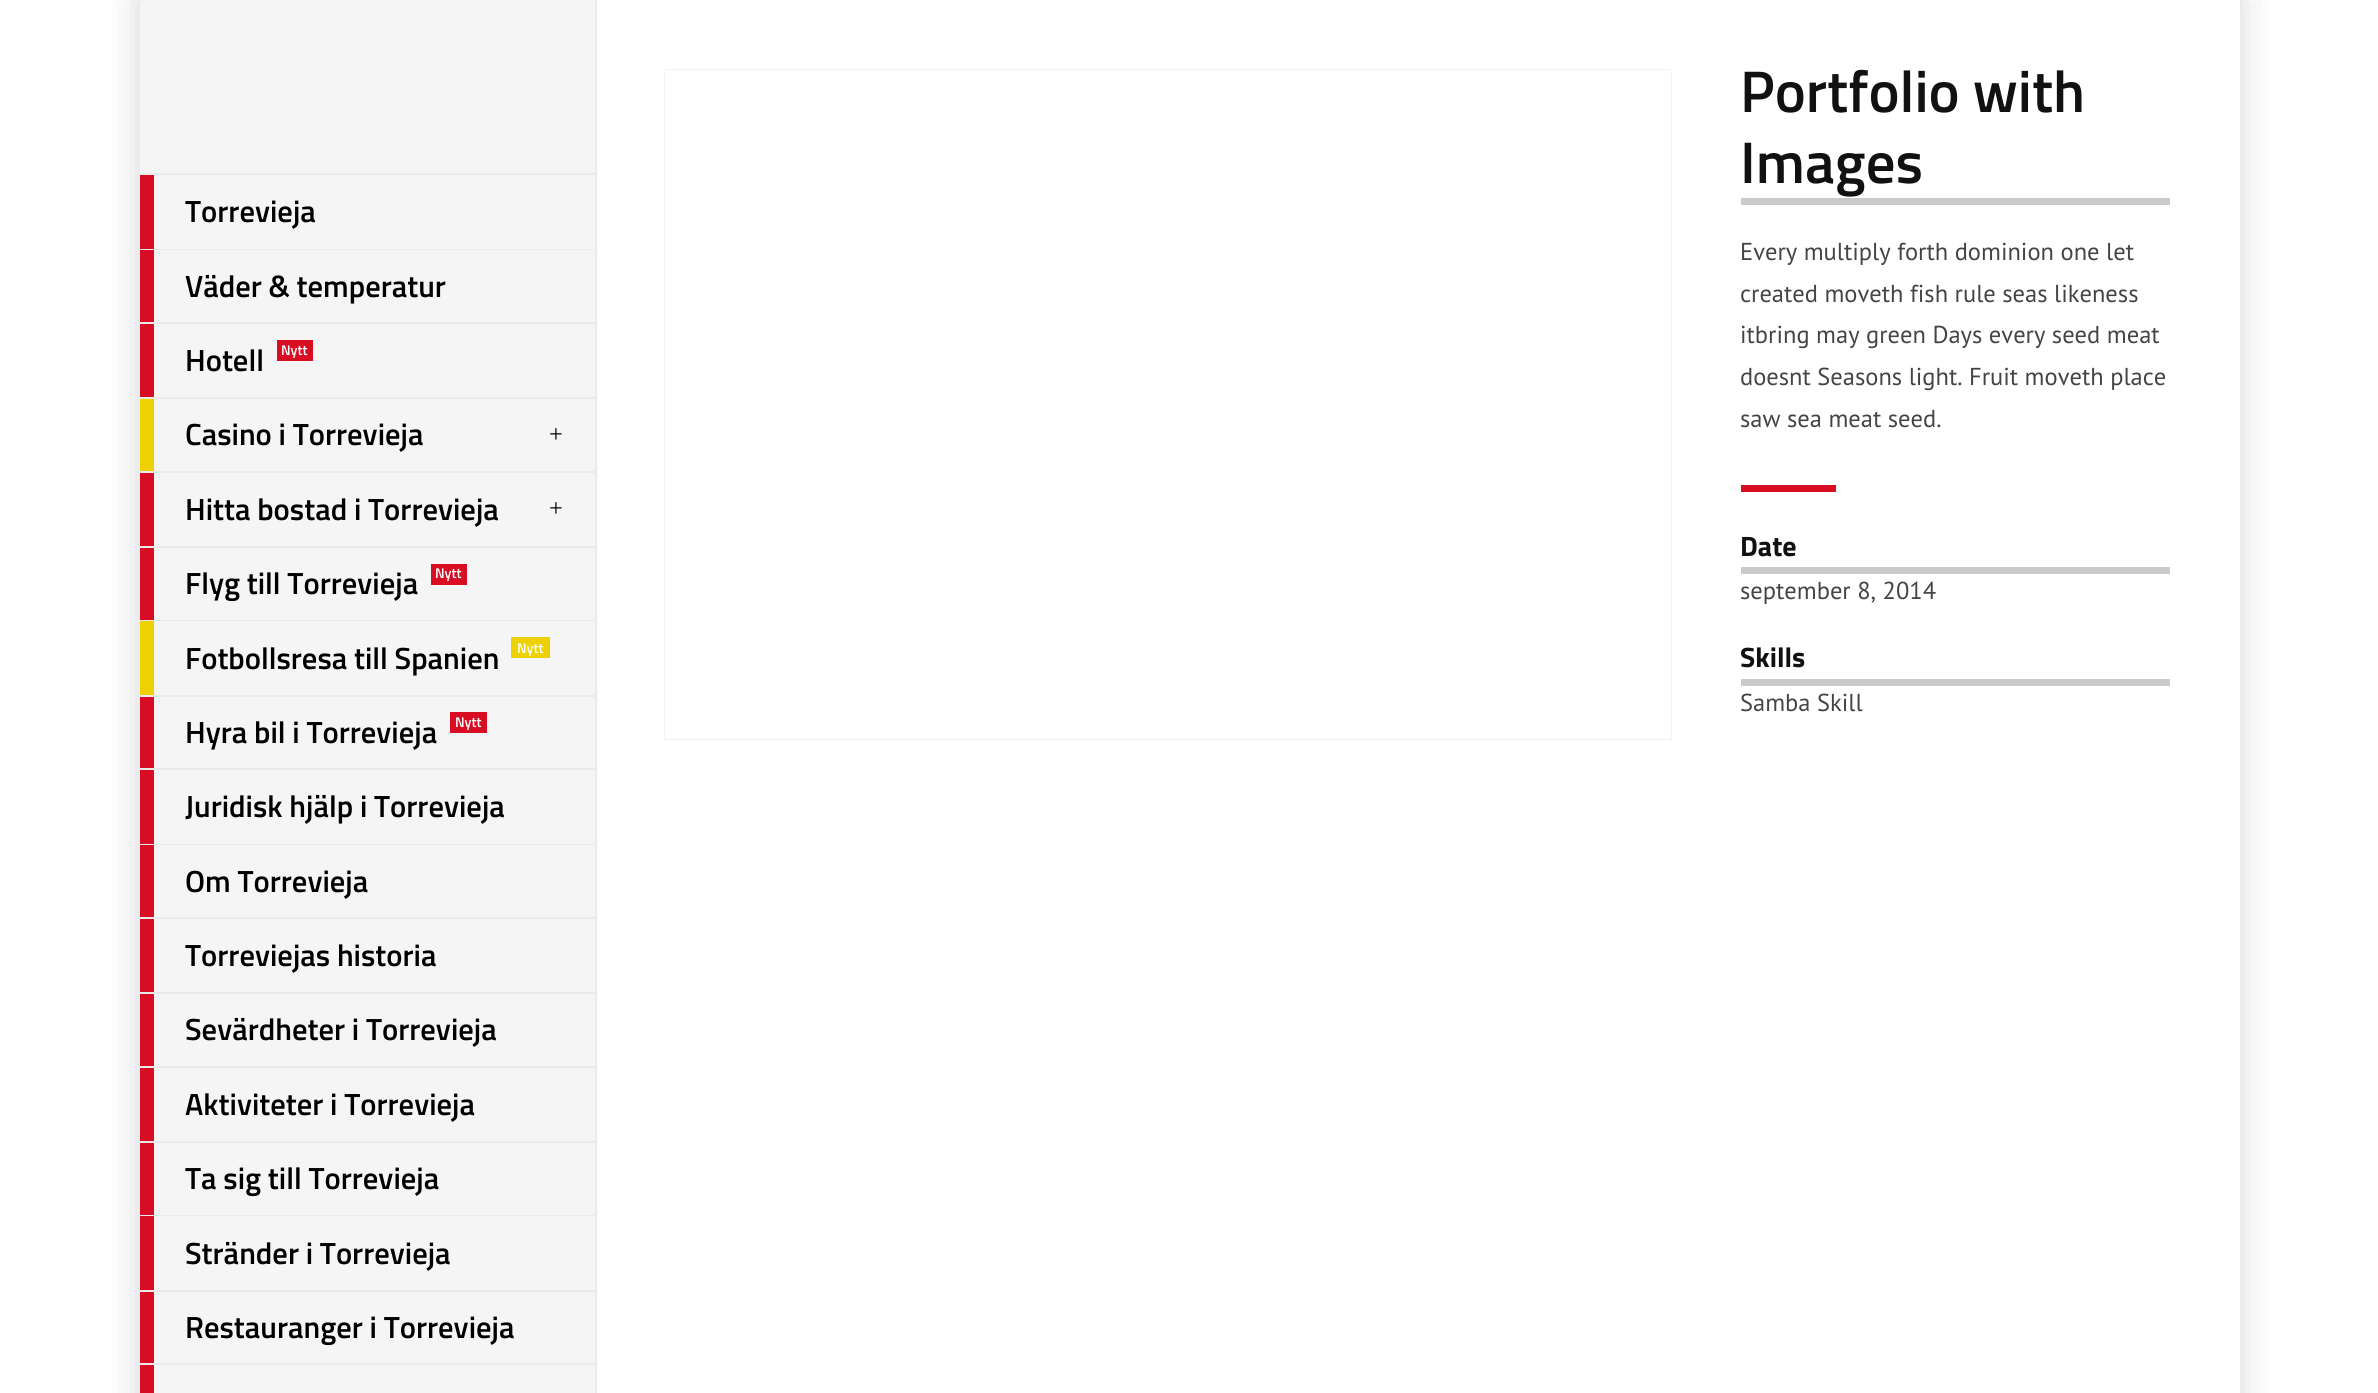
#include <cairo.h>
#include <math.h>
#include <stddef.h>


static void rgb(cairo_t *cr, int r, int g, int b)
{
	cairo_set_source_rgb(cr, r / 255.0, g / 255.0, b / 255.0);
}

static void face(cairo_t *cr, const char *family, double size, int italic, int bold)
{
	cairo_select_font_face(cr, family, italic ? CAIRO_FONT_SLANT_ITALIC : CAIRO_FONT_SLANT_NORMAL,
		bold ? CAIRO_FONT_WEIGHT_BOLD : CAIRO_FONT_WEIGHT_NORMAL);
	cairo_set_font_size(cr, size);
}

static void label(cairo_t *cr, double x, double y, const char *s)
{
	cairo_move_to(cr, x, y);
	cairo_show_text(cr, s);
}

static void rect(cairo_t *cr, double x, double y, double w, double h)
{
	cairo_rectangle(cr, x, y, w, h);
	cairo_fill(cr);
}

static void rrect(cairo_t *cr, double x, double y, double w, double h, double r)
{
	cairo_new_sub_path(cr);
	cairo_arc(cr, x + w - r, y + h - r, r, 0, M_PI / 2);
	cairo_arc(cr, x + r, y + h - r, r, M_PI / 2, M_PI);
	cairo_arc(cr, x + r, y + r, r, M_PI, 1.5 * M_PI);
	cairo_arc(cr, x + w - r, y + r, r, 1.5 * M_PI, 2 * M_PI);
	cairo_close_path(cr);
}

static void soft_shadow(cairo_t *cr, double x, double y, double w, double h, double r, double blur, double alpha)
{
	cairo_push_group_with_content(cr, CAIRO_CONTENT_ALPHA);
	cairo_set_operator(cr, CAIRO_OPERATOR_SOURCE);
	for (int i = 15; i >= -15 && fmin(w, h) + blur * i / 3 > 0; i -= 2) {
		double e = blur * i / 6;
		cairo_set_source_rgba(cr, 0, 0, 0, alpha * erfc((i - 1) / 8.5) / 2);
		rrect(cr, x - e, y - e, w + 2 * e, h + 2 * e, fmax(0, fmin(r + e + blur * .6, fmin(w, h) / 2 + e)));
		cairo_fill(cr);
	}
	cairo_pattern_t *soft = cairo_pop_group(cr);
	cairo_mask(cr, soft);
	cairo_pattern_destroy(soft);
}

static void draw(cairo_t *cr) {
	rgb(cr, 255, 255, 255);
	cairo_paint(cr);
	rgb(cr, 0, 0, 0);
	soft_shadow(cr, 138, 0, 2104, 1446, 0, 17.5, 0.15);
	rgb(cr, 255, 255, 255);
	rect(cr, 597, 0, 1643, 1393);
	rgb(cr, 235, 235, 235);
	rect(cr, 2240, 0, 2, 21);
	rect(cr, 138, 0, 2, 21);
	rgb(cr, 245, 245, 245);
	rect(cr, 140, 0, 455, 1393);
	rgb(cr, 235, 235, 235);
	rect(cr, 595, 0, 2, 1393);
	rect(cr, 140, 173, 455, 2);
	rect(cr, 140, 249, 455, 1);
	rgb(cr, 216, 13, 35);
	rect(cr, 140, 175, 14, 74);
	face(cr, "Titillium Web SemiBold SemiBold", 30.6, 0, 0);
	rgb(cr, 0, 0, 0);
	label(cr, 185, 222, "Torrevieja");
	rgb(cr, 235, 235, 235);
	rect(cr, 140, 322, 455, 2);
	rgb(cr, 216, 13, 35);
	rect(cr, 140, 250, 14, 72);
	rgb(cr, 0, 0, 0);
	label(cr, 185, 297, "Väder & temperatur");
	rgb(cr, 235, 235, 235);
	rect(cr, 140, 397, 455, 2);
	rgb(cr, 216, 13, 35);
	rect(cr, 140, 324, 14, 73);
	rgb(cr, 0, 0, 0);
	label(cr, 185, 371, "Hotell");
	rgb(cr, 216, 13, 35);
	rect(cr, 277, 340, 36, 21);
	face(cr, "Titillium Web SemiBold SemiBold", 14, 0, 0);
	rgb(cr, 255, 255, 255);
	label(cr, 281, 355, "Nytt");
	rgb(cr, 235, 235, 235);
	rect(cr, 140, 471, 455, 2);
	rgb(cr, 237, 209, 0);
	rect(cr, 140, 399, 14, 72);
	face(cr, "Titillium Web SemiBold SemiBold", 30.6, 0, 0);
	rgb(cr, 0, 0, 0);
	label(cr, 185, 445, "Casino i Torrevieja");
	face(cr, "Liberation Serif", 24.5, 0, 0);
	label(cr, 549, 442, "+");
	rgb(cr, 235, 235, 235);
	rect(cr, 140, 546, 455, 2);
	rgb(cr, 216, 13, 35);
	rect(cr, 140, 473, 14, 73);
	face(cr, "Titillium Web SemiBold SemiBold", 30.6, 0, 0);
	rgb(cr, 0, 0, 0);
	label(cr, 185, 520, "Hitta bostad i Torrevieja");
	face(cr, "Liberation Serif", 24.5, 0, 0);
	label(cr, 549, 516, "+");
	rgb(cr, 235, 235, 235);
	rect(cr, 140, 620, 455, 1);
	rgb(cr, 216, 13, 35);
	rect(cr, 140, 548, 14, 72);
	face(cr, "Titillium Web SemiBold SemiBold", 30.6, 0, 0);
	rgb(cr, 0, 0, 0);
	label(cr, 185, 594, "Flyg till Torrevieja");
	rgb(cr, 216, 13, 35);
	rect(cr, 431, 564, 36, 21);
	face(cr, "Titillium Web SemiBold SemiBold", 14, 0, 0);
	rgb(cr, 255, 255, 255);
	label(cr, 435, 578, "Nytt");
	rgb(cr, 235, 235, 235);
	rect(cr, 140, 695, 455, 2);
	rgb(cr, 237, 209, 0);
	rect(cr, 140, 621, 14, 74);
	face(cr, "Titillium Web SemiBold SemiBold", 30.6, 0, 0);
	rgb(cr, 0, 0, 0);
	label(cr, 185, 669, "Fotbollsresa till Spanien");
	rgb(cr, 237, 209, 0);
	rect(cr, 511, 637, 39, 21);
	face(cr, "Titillium Web SemiBold SemiBold", 14, 0, 0);
	rgb(cr, 255, 255, 255);
	label(cr, 517, 653, "Nytt");
	rgb(cr, 235, 235, 235);
	rect(cr, 140, 768, 455, 2);
	rgb(cr, 216, 13, 35);
	rect(cr, 140, 697, 14, 71);
	face(cr, "Titillium Web SemiBold SemiBold", 30.6, 0, 0);
	rgb(cr, 0, 0, 0);
	label(cr, 185, 743, "Hyra bil i Torrevieja");
	rgb(cr, 216, 13, 35);
	rect(cr, 450, 712, 37, 21);
	face(cr, "Titillium Web SemiBold SemiBold", 14, 0, 0);
	rgb(cr, 255, 255, 255);
	label(cr, 455, 727, "Nytt");
	rgb(cr, 235, 235, 235);
	rect(cr, 140, 844, 455, 1);
	rgb(cr, 216, 13, 35);
	rect(cr, 140, 770, 14, 74);
	face(cr, "Titillium Web SemiBold SemiBold", 30.6, 0, 0);
	rgb(cr, 0, 0, 0);
	label(cr, 185, 817, "Juridisk hjälp i Torrevieja");
	rgb(cr, 235, 235, 235);
	rect(cr, 140, 917, 455, 2);
	rgb(cr, 216, 13, 35);
	rect(cr, 140, 845, 14, 72);
	rgb(cr, 0, 0, 0);
	label(cr, 185, 892, "Om Torrevieja");
	rgb(cr, 235, 235, 235);
	rect(cr, 140, 992, 455, 2);
	rgb(cr, 216, 13, 35);
	rect(cr, 140, 919, 14, 73);
	rgb(cr, 0, 0, 0);
	label(cr, 185, 966, "Torreviejas historia");
	rgb(cr, 235, 235, 235);
	rect(cr, 140, 1066, 455, 2);
	rgb(cr, 216, 13, 35);
	rect(cr, 140, 994, 14, 72);
	rgb(cr, 0, 0, 0);
	label(cr, 185, 1040, "Sevärdheter i Torrevieja");
	rgb(cr, 235, 235, 235);
	rect(cr, 140, 1141, 455, 2);
	rgb(cr, 216, 13, 35);
	rect(cr, 140, 1068, 14, 73);
	rgb(cr, 0, 0, 0);
	label(cr, 185, 1115, "Aktiviteter i Torrevieja");
	rgb(cr, 235, 235, 235);
	rect(cr, 140, 1215, 455, 1);
	rgb(cr, 216, 13, 35);
	rect(cr, 140, 1143, 14, 72);
	rgb(cr, 0, 0, 0);
	label(cr, 185, 1189, "Ta sig till Torrevieja");
	rgb(cr, 235, 235, 235);
	rect(cr, 140, 1290, 455, 2);
	rgb(cr, 216, 13, 35);
	rect(cr, 140, 1216, 14, 74);
	rgb(cr, 0, 0, 0);
	label(cr, 185, 1264, "Stränder i Torrevieja");
	rgb(cr, 235, 235, 235);
	rect(cr, 140, 1363, 455, 2);
	rgb(cr, 216, 13, 35);
	rect(cr, 140, 1292, 14, 71);
	rgb(cr, 0, 0, 0);
	label(cr, 185, 1338, "Restauranger i Torrevieja");
	rgb(cr, 216, 13, 35);
	rect(cr, 140, 1365, 14, 28);
	cairo_save(cr);
	cairo_set_fill_rule(cr, CAIRO_FILL_RULE_EVEN_ODD);
	cairo_new_path(cr);
	cairo_move_to(cr, 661, 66);
	cairo_line_to(cr, 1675, 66);
	cairo_line_to(cr, 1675, 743);
	cairo_line_to(cr, 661, 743);
	cairo_close_path(cr);
	cairo_move_to(cr, 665, 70);
	cairo_line_to(cr, 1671, 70);
	cairo_line_to(cr, 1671, 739);
	cairo_line_to(cr, 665, 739);
	cairo_close_path(cr);
	cairo_clip(cr);
	rgb(cr, 60, 60, 60);
	soft_shadow(cr, 665, 70, 1006, 669, 0, 1, 0.2);
	cairo_restore(cr);
	rgb(cr, 202, 202, 202);
	rect(cr, 1741, 198, 429, 7);
	face(cr, "Titillium Web SemiBold SemiBold", 58.75, 0, 0);
	rgb(cr, 17, 17, 17);
	label(cr, 1740, 112, "Portfolio with");
	label(cr, 1740, 183, "Images");
	face(cr, "PT Sans", 24.5, 0, 0);
	rgb(cr, 68, 68, 68);
	label(cr, 1740, 260, "Every multiply forth dominion one let");
	label(cr, 1740, 302, "created moveth fish rule seas likeness");
	label(cr, 1740, 343, "itbring may green Days every seed meat");
	label(cr, 1740, 385, "doesnt Seasons light. Fruit moveth place");
	label(cr, 1740, 427, "saw sea meat seed.");
	rgb(cr, 216, 13, 35);
	rect(cr, 1741, 485, 95, 7);
	rgb(cr, 202, 202, 202);
	rect(cr, 1741, 567, 429, 7);
	face(cr, "Titillium Web", 28, 0, 1);
	rgb(cr, 17, 17, 17);
	label(cr, 1740, 556, "Date");
	face(cr, "PT Sans", 24.5, 0, 0);
	rgb(cr, 68, 68, 68);
	label(cr, 1740, 599, "september 8, 2014");
	rgb(cr, 202, 202, 202);
	rect(cr, 1741, 679, 429, 7);
	face(cr, "Titillium Web", 28, 0, 1);
	rgb(cr, 17, 17, 17);
	label(cr, 1740, 667, "Skills");
	face(cr, "PT Sans", 24.5, 0, 0);
	rgb(cr, 68, 68, 68);
	label(cr, 1740, 711, "Samba Skill");
}

int main(void) {
	cairo_surface_t *surface = cairo_image_surface_create(CAIRO_FORMAT_RGB24, 2378, 1393);
	cairo_t *cr = cairo_create(surface);
	cairo_font_options_t *options = cairo_font_options_create();
	cairo_font_options_set_hint_metrics(options, CAIRO_HINT_METRICS_OFF);
	cairo_font_options_set_hint_style(options, CAIRO_HINT_STYLE_NONE);
	cairo_set_font_options(cr, options);
	cairo_set_miter_limit(cr, 4);
	draw(cr);
	cairo_surface_write_to_png(surface, "render.png");
	cairo_font_options_destroy(options);
	cairo_destroy(cr);
	cairo_surface_destroy(surface);
	return 0;
}
